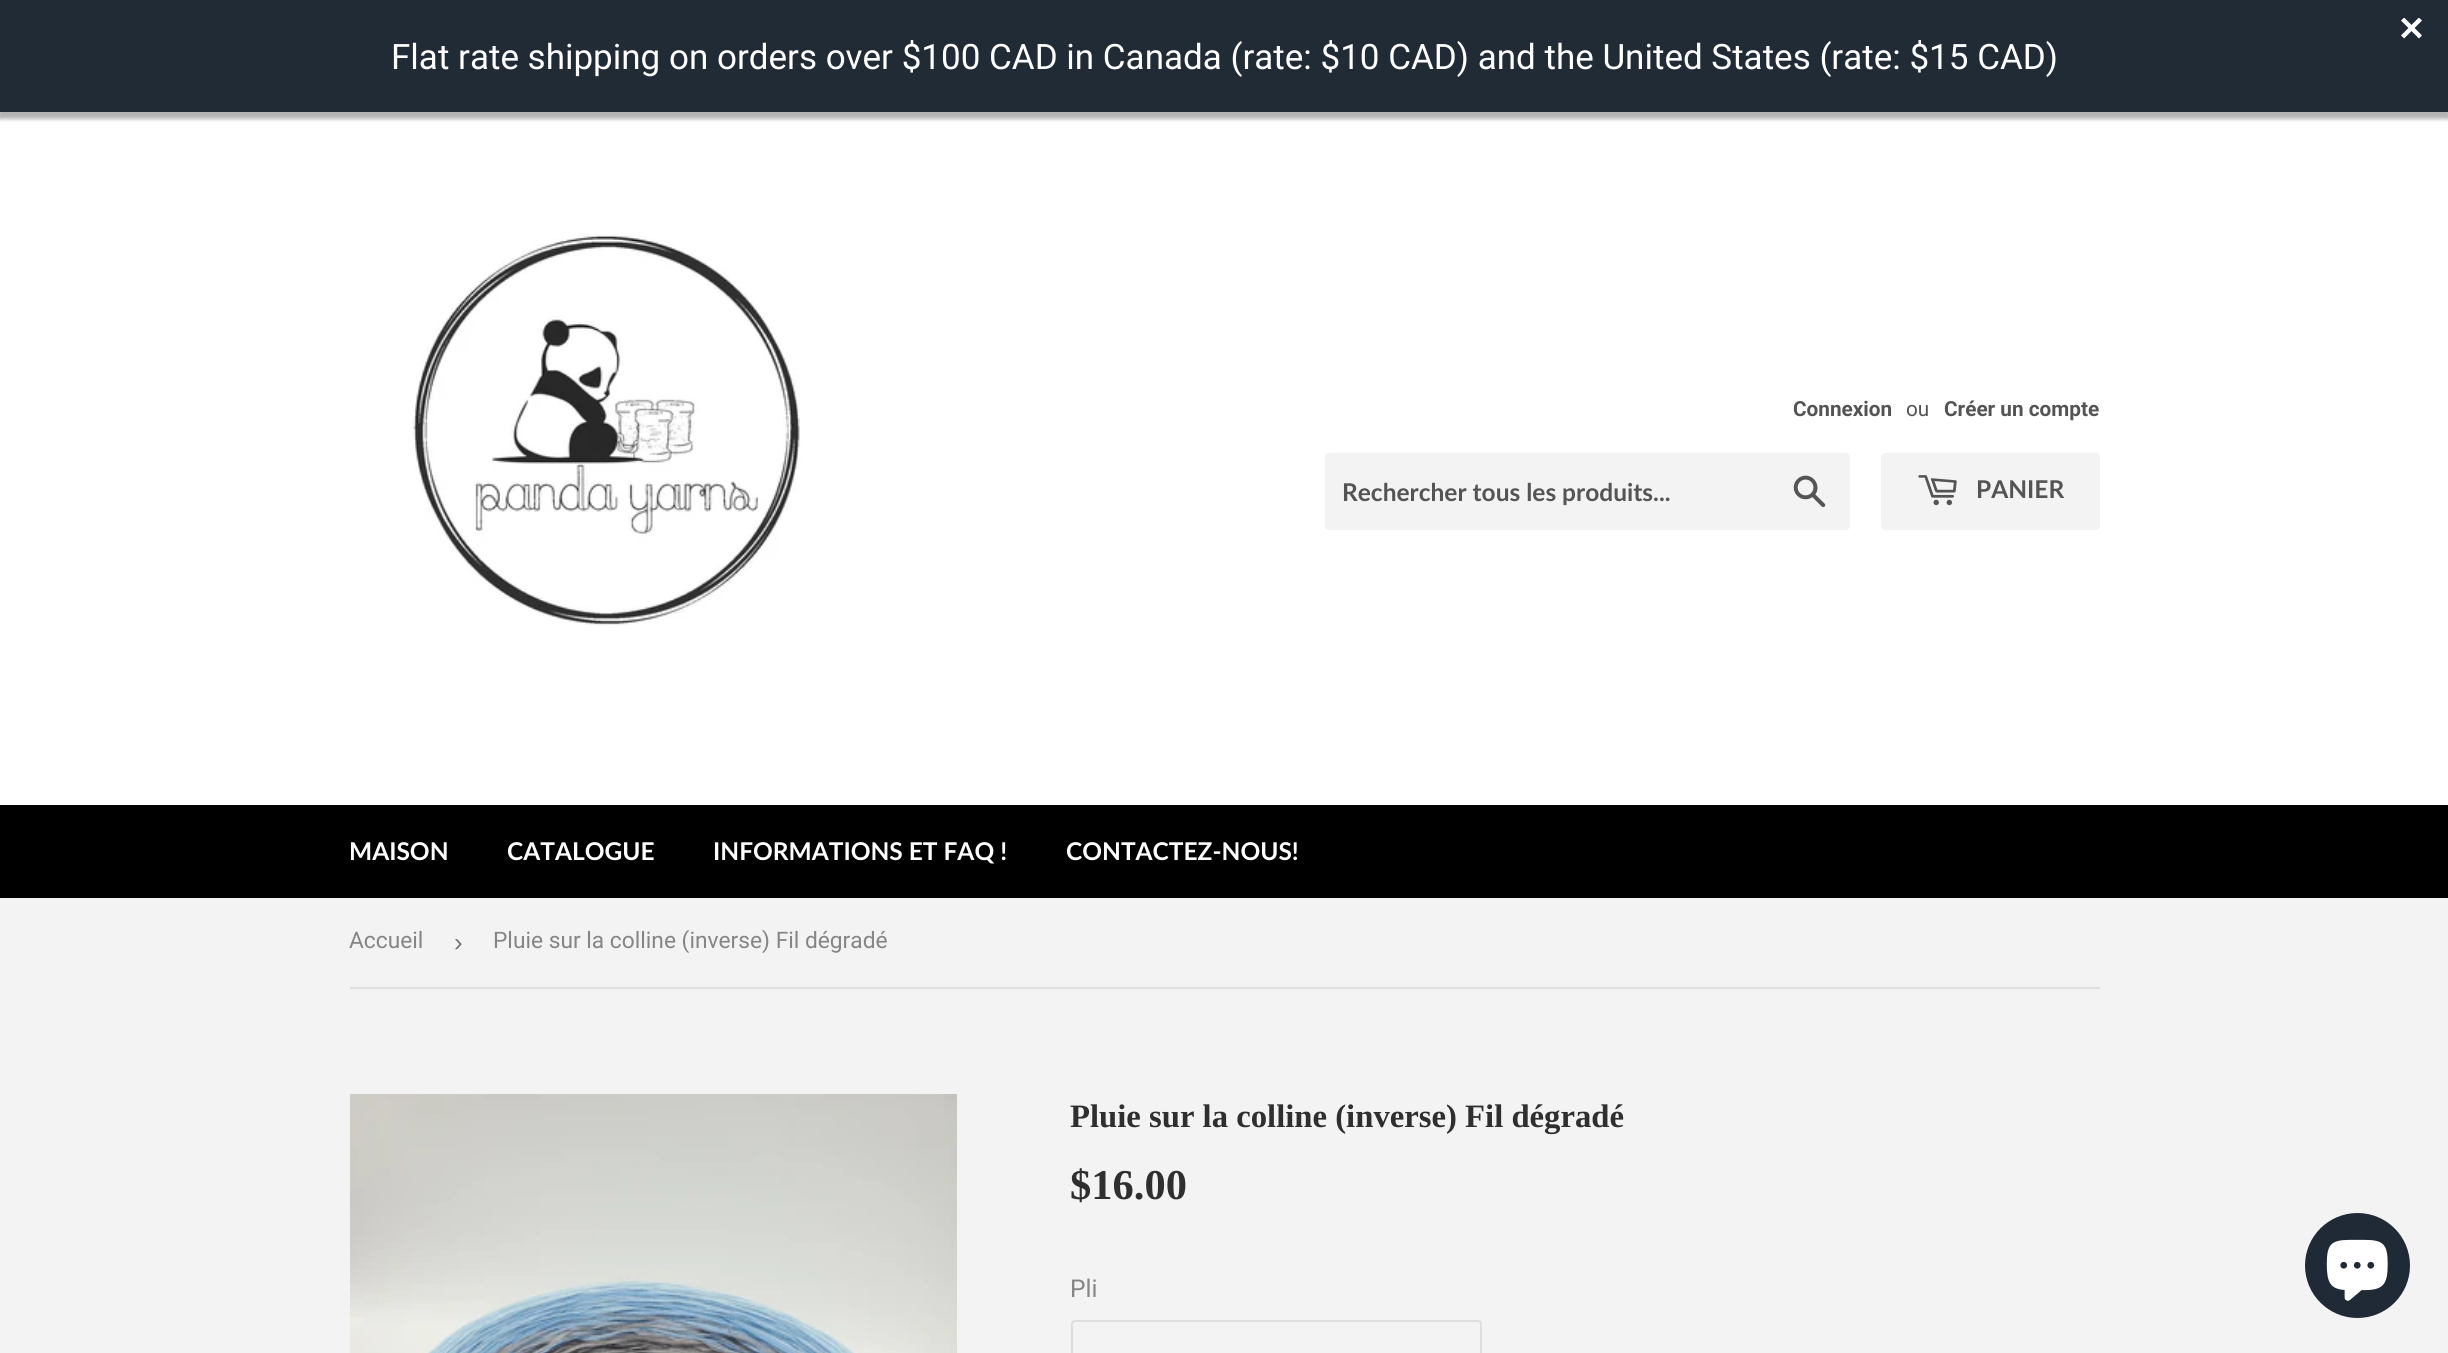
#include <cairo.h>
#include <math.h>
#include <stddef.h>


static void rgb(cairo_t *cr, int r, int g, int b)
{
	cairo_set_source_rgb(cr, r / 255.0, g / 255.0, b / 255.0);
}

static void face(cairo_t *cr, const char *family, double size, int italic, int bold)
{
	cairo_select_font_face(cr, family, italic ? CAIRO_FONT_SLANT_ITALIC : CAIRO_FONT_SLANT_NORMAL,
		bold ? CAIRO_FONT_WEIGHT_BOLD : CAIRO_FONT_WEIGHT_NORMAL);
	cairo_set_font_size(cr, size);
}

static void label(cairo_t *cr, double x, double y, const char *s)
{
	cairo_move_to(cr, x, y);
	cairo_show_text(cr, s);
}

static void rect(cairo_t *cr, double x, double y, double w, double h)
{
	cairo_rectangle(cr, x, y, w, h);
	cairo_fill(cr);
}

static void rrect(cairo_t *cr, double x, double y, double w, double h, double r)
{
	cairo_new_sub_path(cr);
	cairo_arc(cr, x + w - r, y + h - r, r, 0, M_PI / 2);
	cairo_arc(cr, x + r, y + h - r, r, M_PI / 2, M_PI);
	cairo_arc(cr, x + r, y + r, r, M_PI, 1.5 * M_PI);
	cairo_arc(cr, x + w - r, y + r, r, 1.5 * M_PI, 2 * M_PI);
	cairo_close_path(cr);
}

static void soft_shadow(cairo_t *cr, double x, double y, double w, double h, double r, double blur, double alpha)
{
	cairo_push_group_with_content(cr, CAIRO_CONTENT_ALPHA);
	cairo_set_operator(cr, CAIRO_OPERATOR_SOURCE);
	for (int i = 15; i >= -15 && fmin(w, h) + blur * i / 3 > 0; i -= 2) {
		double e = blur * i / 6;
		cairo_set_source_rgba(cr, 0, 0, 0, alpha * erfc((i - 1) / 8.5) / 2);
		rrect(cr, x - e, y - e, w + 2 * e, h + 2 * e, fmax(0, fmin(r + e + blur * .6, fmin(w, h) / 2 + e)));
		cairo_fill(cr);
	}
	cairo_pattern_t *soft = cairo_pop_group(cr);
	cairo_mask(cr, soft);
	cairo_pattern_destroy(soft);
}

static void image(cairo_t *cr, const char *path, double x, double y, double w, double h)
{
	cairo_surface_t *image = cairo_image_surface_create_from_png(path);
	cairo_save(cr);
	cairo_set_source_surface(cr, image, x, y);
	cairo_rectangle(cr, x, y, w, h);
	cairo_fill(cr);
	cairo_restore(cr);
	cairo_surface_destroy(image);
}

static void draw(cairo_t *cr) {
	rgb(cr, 243, 243, 243);
	cairo_paint(cr);
	rgb(cr, 255, 255, 255);
	rect(cr, 0, 112, 2448, 693);
	rgb(cr, 0, 0, 0);
	soft_shadow(cr, -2, 4, 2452, 115, 0, 2, 0.3);
	rgb(cr, 33, 43, 53);
	rect(cr, 0, 0, 2448, 112);
	image(cr, "image0.png", 2401, 18, 21, 21);
	face(cr, "Roboto", 35, 0, 0);
	rgb(cr, 255, 255, 255);
	label(cr, 391, 69, "Flat rate shipping on orders over $100 CAD in Canada (rate: $10 CAD) and the United States (rate: $15 CAD)");
	image(cr, "image1.png", 411, 234, 390, 391);
	face(cr, "Roboto", 20.75, 0, 1);
	rgb(cr, 84, 84, 84);
	label(cr, 1793, 416, "Connexion");
	face(cr, "Roboto", 20.75, 0, 0);
	label(cr, 1906, 416, "ou");
	face(cr, "Roboto", 20.75, 0, 1);
	label(cr, 1944, 416, "Créer un compte");
	rgb(cr, 243, 243, 243);
	rrect(cr, 1325, 453, 525, 77, 4);
	cairo_fill(cr);
	face(cr, "Lato", 24.5, 0, 1);
	rgb(cr, 84, 84, 84);
	label(cr, 1342, 501, "Rechercher tous les produits...");
	image(cr, "image2.png", 1793, 475, 33, 32);
	rgb(cr, 243, 243, 243);
	rrect(cr, 1881, 453, 219, 77, 4);
	cairo_fill(cr);
	image(cr, "image3.png", 1918, 475, 39, 31);
	rgb(cr, 84, 84, 84);
	label(cr, 1976, 498, "PANIER");
	rgb(cr, 0, 0, 0);
	rect(cr, 0, 805, 2448, 93);
	rgb(cr, 255, 255, 255);
	label(cr, 349, 860, "MAISON");
	label(cr, 507, 860, "CATALOGUE");
	label(cr, 713, 860, "INFORMATIONS ET FAQ !");
	label(cr, 1066, 860, "CONTACTEZ-NOUS!");
	rgb(cr, 222, 222, 222);
	rect(cr, 350, 987, 1750, 2);
	face(cr, "Roboto", 22.75, 0, 0);
	rgb(cr, 133, 133, 133);
	label(cr, 349, 948, "Accueil");
	face(cr, "Liberation Sans", 26, 0, 0);
	rgb(cr, 118, 118, 118);
	label(cr, 454, 951, "›");
	face(cr, "Roboto", 22.75, 0, 0);
	rgb(cr, 133, 133, 133);
	label(cr, 493, 948, "Pluie sur la colline (inverse) Fil dégradé");
	image(cr, "image4.png", 350, 1094, 607, 259);
	face(cr, "Liberation Serif", 32.7, 0, 1);
	rgb(cr, 47, 47, 47);
	label(cr, 1070, 1127, "Pluie sur la colline (inverse) Fil dégradé");
	face(cr, "Liberation Serif", 42.5, 0, 1);
	label(cr, 1070, 1199, "$16.00");
	face(cr, "Roboto", 24.5, 0, 0);
	rgb(cr, 133, 133, 133);
	label(cr, 1070, 1297, "Pli");
	rrect(cr, 1072, 1321, 409, 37, 3);
	rgb(cr, 222, 222, 222);
	cairo_stroke(cr);
	rgb(cr, 32, 42, 54);
	cairo_arc(cr, 2357.5, 1265.5, 52.5, 0, 2 * M_PI);
	cairo_fill(cr);
	image(cr, "image5.png", 2326, 1239, 62, 62);
}

int main(void) {
	cairo_surface_t *surface = cairo_image_surface_create(CAIRO_FORMAT_RGB24, 2448, 1353);
	cairo_t *cr = cairo_create(surface);
	cairo_font_options_t *options = cairo_font_options_create();
	cairo_font_options_set_hint_metrics(options, CAIRO_HINT_METRICS_OFF);
	cairo_font_options_set_hint_style(options, CAIRO_HINT_STYLE_NONE);
	cairo_set_font_options(cr, options);
	cairo_set_miter_limit(cr, 4);
	draw(cr);
	cairo_surface_write_to_png(surface, "render.png");
	cairo_font_options_destroy(options);
	cairo_destroy(cr);
	cairo_surface_destroy(surface);
	return 0;
}
